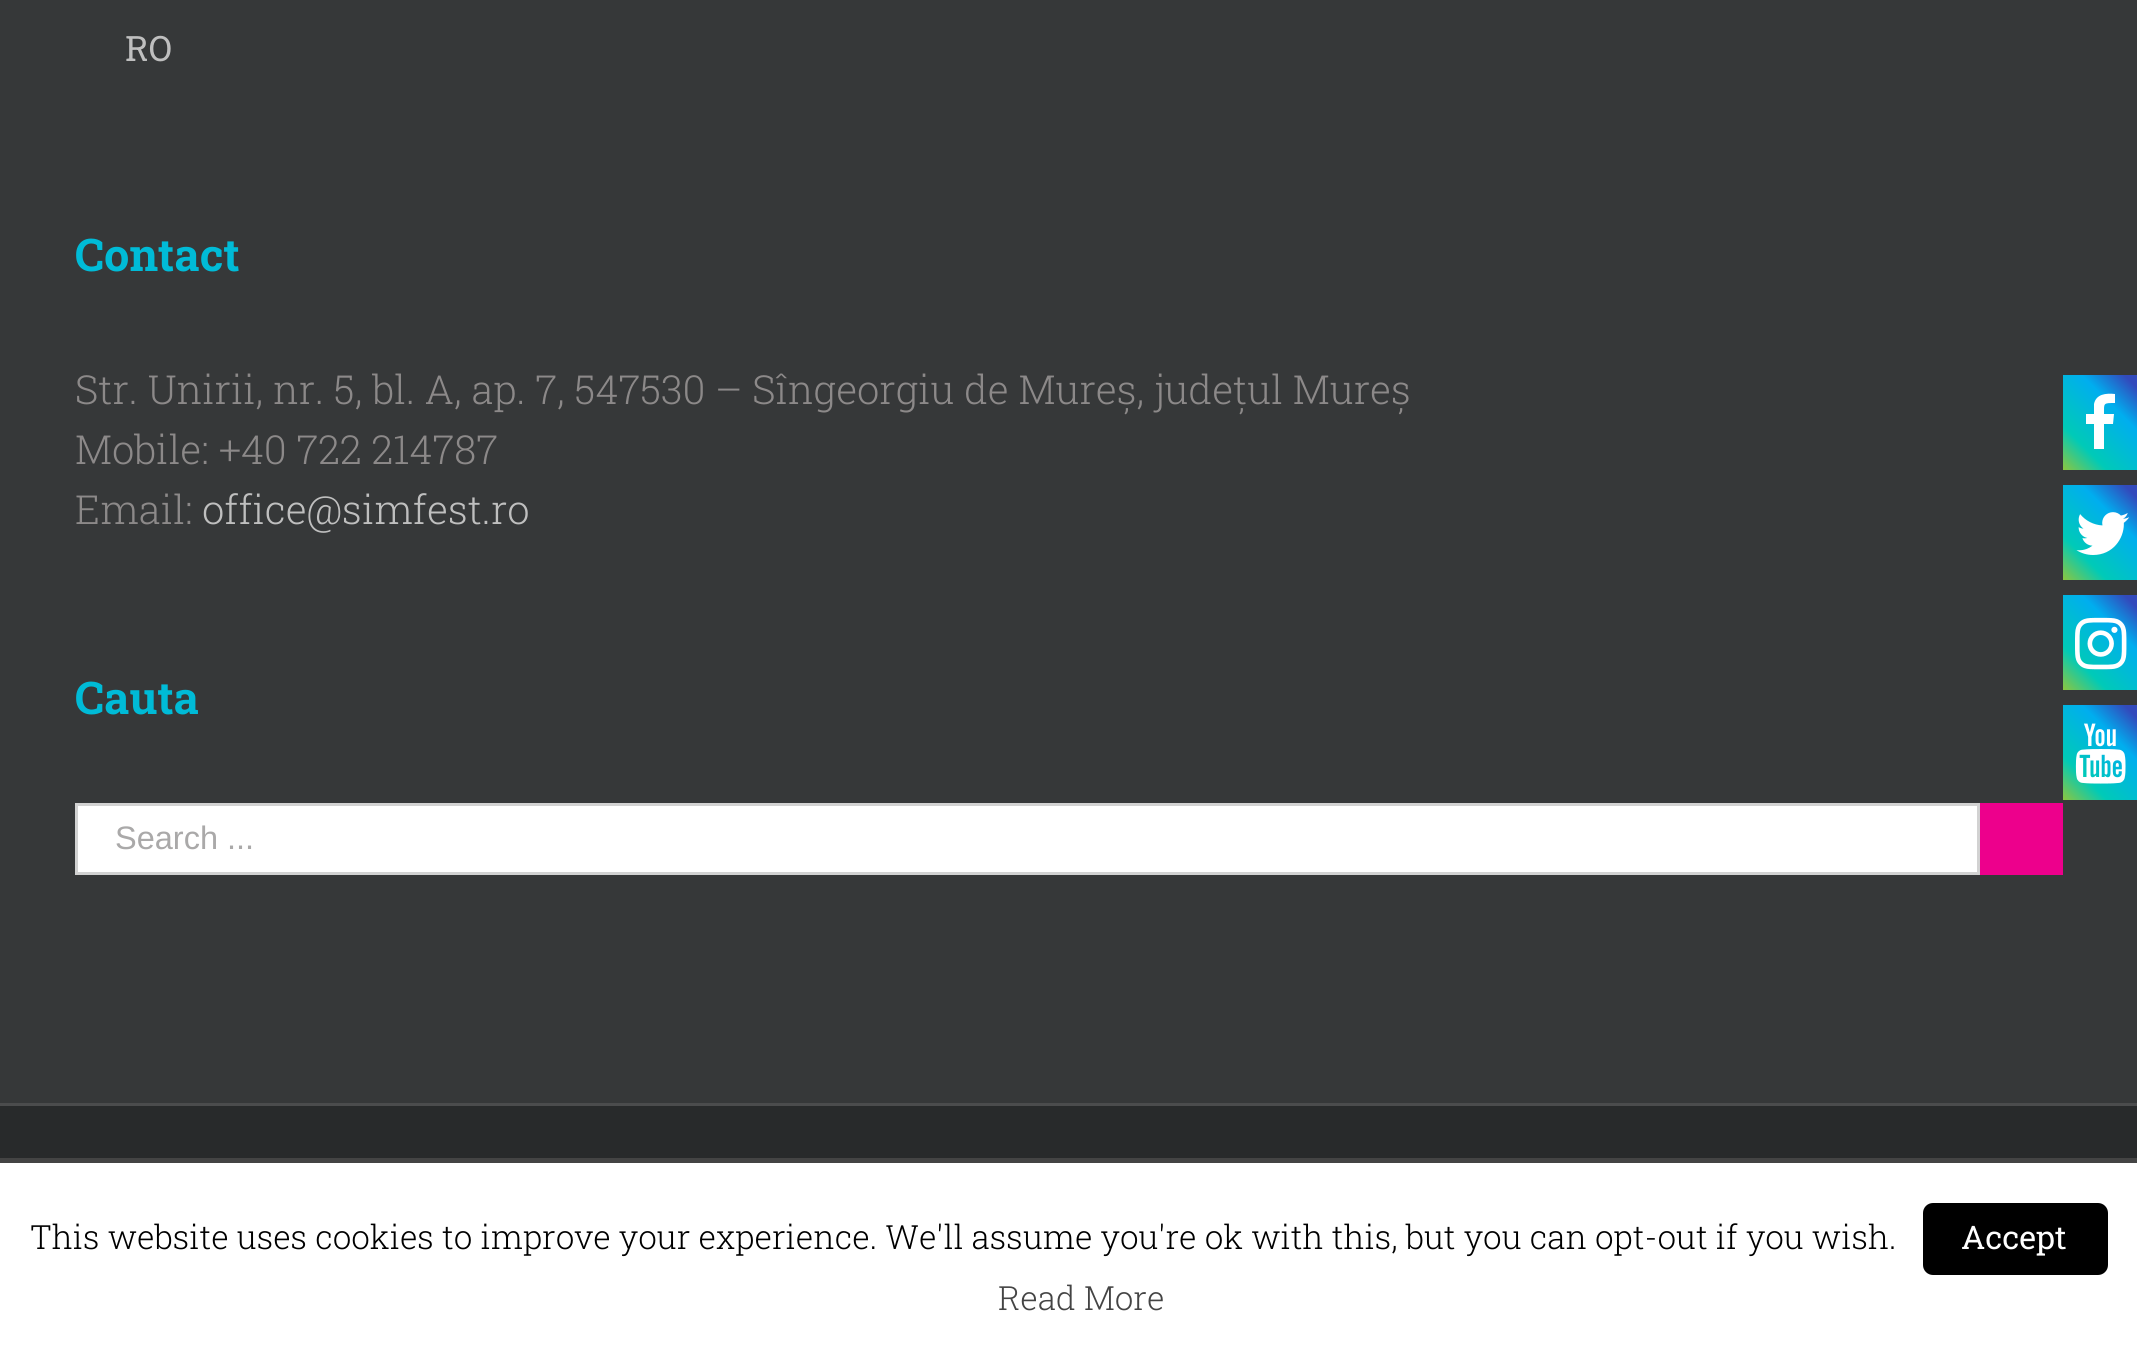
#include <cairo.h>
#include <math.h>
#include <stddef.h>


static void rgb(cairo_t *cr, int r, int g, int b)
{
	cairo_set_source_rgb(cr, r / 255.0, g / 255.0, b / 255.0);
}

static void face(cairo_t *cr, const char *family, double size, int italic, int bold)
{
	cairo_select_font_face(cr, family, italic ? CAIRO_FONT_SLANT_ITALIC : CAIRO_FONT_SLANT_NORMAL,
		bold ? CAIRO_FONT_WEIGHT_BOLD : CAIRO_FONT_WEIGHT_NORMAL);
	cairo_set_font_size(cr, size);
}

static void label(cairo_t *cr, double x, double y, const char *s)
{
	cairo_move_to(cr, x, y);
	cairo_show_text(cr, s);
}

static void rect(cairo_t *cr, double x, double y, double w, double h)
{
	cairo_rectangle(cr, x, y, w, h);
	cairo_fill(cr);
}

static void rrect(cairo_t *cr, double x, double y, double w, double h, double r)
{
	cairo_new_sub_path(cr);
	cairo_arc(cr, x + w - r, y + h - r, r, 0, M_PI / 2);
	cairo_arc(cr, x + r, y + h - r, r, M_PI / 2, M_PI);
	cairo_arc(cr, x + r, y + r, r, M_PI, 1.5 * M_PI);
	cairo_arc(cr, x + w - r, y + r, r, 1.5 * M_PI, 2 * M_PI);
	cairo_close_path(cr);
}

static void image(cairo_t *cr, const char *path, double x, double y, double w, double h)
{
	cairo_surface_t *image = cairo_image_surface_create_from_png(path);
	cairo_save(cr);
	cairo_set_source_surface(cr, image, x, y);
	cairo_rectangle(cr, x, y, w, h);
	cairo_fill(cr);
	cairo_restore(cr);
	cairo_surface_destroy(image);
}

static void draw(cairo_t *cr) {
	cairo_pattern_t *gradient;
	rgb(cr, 54, 56, 57);
	cairo_paint(cr);
	face(cr, "Roboto Slab", 35, 0, 0);
	rgb(cr, 191, 191, 191);
	label(cr, 125, 61, "RO");
	face(cr, "Roboto Slab", 45, 0, 1);
	rgb(cr, 0, 187, 215);
	label(cr, 75, 271, "Contact");
	face(cr, "Roboto Slab Light", 40, 0, 0);
	rgb(cr, 140, 137, 137);
	label(cr, 75, 404, "Str. Unirii, nr. 5, bl. A, ap. 7, 547530 – Sîngeorgiu de Mureș, județul Mureș");
	label(cr, 75, 464, "Mobile: +40 722 214787");
	label(cr, 75, 524, "Email:");
	rgb(cr, 191, 191, 191);
	label(cr, 202, 524, "office@simfest.ro");
	gradient = cairo_pattern_create_linear(2058, 465, 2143, 380);
	cairo_pattern_add_color_stop_rgba(gradient, 0, 0.553, 0.776, 0.247, 1);
	cairo_pattern_add_color_stop_rgba(gradient, 0.26, 0, 0.792, 0.718, 1);
	cairo_pattern_add_color_stop_rgba(gradient, 0.67, 0, 0.682, 0.937, 1);
	cairo_pattern_add_color_stop_rgba(gradient, 0.92, 0.196, 0.29, 0.737, 1);
	cairo_set_source(cr, gradient);
	cairo_pattern_destroy(gradient);
	rect(cr, 2063, 375, 74, 95);
	rgb(cr, 255, 255, 255);
	cairo_new_path(cr);
	cairo_move_to(cr, 2115, 394);
	cairo_curve_to(cr, 2106, 393, 2096, 394, 2094, 404);
	cairo_line_to(cr, 2094, 414);
	cairo_line_to(cr, 2086, 414);
	cairo_line_to(cr, 2086, 424);
	cairo_line_to(cr, 2094, 424);
	cairo_line_to(cr, 2094, 449);
	cairo_line_to(cr, 2104, 449);
	cairo_line_to(cr, 2104, 424);
	cairo_line_to(cr, 2113, 424);
	cairo_line_to(cr, 2114, 414);
	cairo_line_to(cr, 2104, 414);
	cairo_curve_to(cr, 2104, 403, 2103, 403, 2115, 403);
	cairo_close_path(cr);
	cairo_fill(cr);
	gradient = cairo_pattern_create_linear(2058, 575, 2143, 490);
	cairo_pattern_add_color_stop_rgba(gradient, 0, 0.553, 0.776, 0.247, 1);
	cairo_pattern_add_color_stop_rgba(gradient, 0.26, 0, 0.792, 0.718, 1);
	cairo_pattern_add_color_stop_rgba(gradient, 0.67, 0, 0.682, 0.937, 1);
	cairo_pattern_add_color_stop_rgba(gradient, 0.92, 0.196, 0.29, 0.737, 1);
	cairo_set_source(cr, gradient);
	cairo_pattern_destroy(gradient);
	rect(cr, 2063, 485, 74, 95);
	image(cr, "image0.png", 2076, 512, 54, 43);
	gradient = cairo_pattern_create_linear(2058, 685, 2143, 600);
	cairo_pattern_add_color_stop_rgba(gradient, 0, 0.553, 0.776, 0.247, 1);
	cairo_pattern_add_color_stop_rgba(gradient, 0.26, 0, 0.792, 0.718, 1);
	cairo_pattern_add_color_stop_rgba(gradient, 0.67, 0, 0.682, 0.937, 1);
	cairo_pattern_add_color_stop_rgba(gradient, 0.92, 0.196, 0.29, 0.737, 1);
	cairo_set_source(cr, gradient);
	cairo_pattern_destroy(gradient);
	rect(cr, 2063, 595, 74, 95);
	image(cr, "image1.png", 2075, 617, 52, 53);
	gradient = cairo_pattern_create_linear(2058, 795, 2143, 710);
	cairo_pattern_add_color_stop_rgba(gradient, 0, 0.553, 0.776, 0.247, 1);
	cairo_pattern_add_color_stop_rgba(gradient, 0.26, 0, 0.792, 0.718, 1);
	cairo_pattern_add_color_stop_rgba(gradient, 0.67, 0, 0.682, 0.937, 1);
	cairo_pattern_add_color_stop_rgba(gradient, 0.92, 0.196, 0.29, 0.737, 1);
	cairo_set_source(cr, gradient);
	cairo_pattern_destroy(gradient);
	rect(cr, 2063, 705, 74, 95);
	image(cr, "image2.png", 2075, 723, 51, 61);
	face(cr, "Roboto Slab", 45, 0, 1);
	rgb(cr, 0, 187, 215);
	label(cr, 75, 714, "Cauta");
	rgb(cr, 255, 255, 255);
	cairo_rectangle(cr, 76.5, 804.5, 1902, 69);
	cairo_fill_preserve(cr);
	rgb(cr, 210, 210, 210);
	cairo_set_line_width(cr, 3);
	cairo_stroke(cr);
	face(cr, "Liberation Sans", 32.5, 0, 0);
	rgb(cr, 170, 169, 169);
	label(cr, 115, 849, "Search ...");
	rgb(cr, 237, 0, 140);
	rect(cr, 1980, 803, 83, 72);
	rgb(cr, 40, 42, 43);
	rect(cr, 0, 1106, 2137, 52);
	rgb(cr, 75, 76, 77);
	rect(cr, 0, 1103, 2137, 3);
	rgb(cr, 255, 255, 255);
	rect(cr, 0, 1163, 2137, 202);
	rgb(cr, 68, 68, 68);
	rect(cr, 0, 1158, 2137, 5);
	face(cr, "Roboto Slab Light", 33.33, 0, 0);
	rgb(cr, 0, 0, 0);
	label(cr, 30, 1249, "This website uses cookies to improve your experience. We'll assume you're ok with this, but you can opt-out if you wish.");
	rrect(cr, 1923, 1203, 185, 72, 10);
	cairo_fill(cr);
	face(cr, "Roboto Slab", 32.5, 0, 0);
	rgb(cr, 255, 255, 255);
	label(cr, 1961, 1249, "Accept");
	face(cr, "Roboto Slab Light", 33.33, 0, 0);
	rgb(cr, 68, 68, 68);
	label(cr, 998, 1310, "Read More");
}

int main(void) {
	cairo_surface_t *surface = cairo_image_surface_create(CAIRO_FORMAT_RGB24, 2137, 1365);
	cairo_t *cr = cairo_create(surface);
	cairo_font_options_t *options = cairo_font_options_create();
	cairo_font_options_set_hint_metrics(options, CAIRO_HINT_METRICS_OFF);
	cairo_font_options_set_hint_style(options, CAIRO_HINT_STYLE_NONE);
	cairo_set_font_options(cr, options);
	cairo_set_miter_limit(cr, 4);
	draw(cr);
	cairo_surface_write_to_png(surface, "render.png");
	cairo_font_options_destroy(options);
	cairo_destroy(cr);
	cairo_surface_destroy(surface);
	return 0;
}
